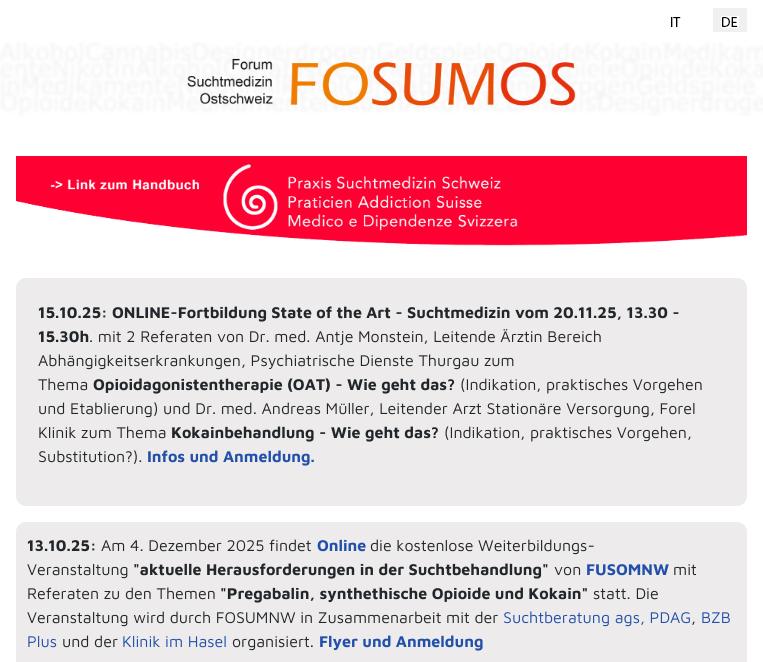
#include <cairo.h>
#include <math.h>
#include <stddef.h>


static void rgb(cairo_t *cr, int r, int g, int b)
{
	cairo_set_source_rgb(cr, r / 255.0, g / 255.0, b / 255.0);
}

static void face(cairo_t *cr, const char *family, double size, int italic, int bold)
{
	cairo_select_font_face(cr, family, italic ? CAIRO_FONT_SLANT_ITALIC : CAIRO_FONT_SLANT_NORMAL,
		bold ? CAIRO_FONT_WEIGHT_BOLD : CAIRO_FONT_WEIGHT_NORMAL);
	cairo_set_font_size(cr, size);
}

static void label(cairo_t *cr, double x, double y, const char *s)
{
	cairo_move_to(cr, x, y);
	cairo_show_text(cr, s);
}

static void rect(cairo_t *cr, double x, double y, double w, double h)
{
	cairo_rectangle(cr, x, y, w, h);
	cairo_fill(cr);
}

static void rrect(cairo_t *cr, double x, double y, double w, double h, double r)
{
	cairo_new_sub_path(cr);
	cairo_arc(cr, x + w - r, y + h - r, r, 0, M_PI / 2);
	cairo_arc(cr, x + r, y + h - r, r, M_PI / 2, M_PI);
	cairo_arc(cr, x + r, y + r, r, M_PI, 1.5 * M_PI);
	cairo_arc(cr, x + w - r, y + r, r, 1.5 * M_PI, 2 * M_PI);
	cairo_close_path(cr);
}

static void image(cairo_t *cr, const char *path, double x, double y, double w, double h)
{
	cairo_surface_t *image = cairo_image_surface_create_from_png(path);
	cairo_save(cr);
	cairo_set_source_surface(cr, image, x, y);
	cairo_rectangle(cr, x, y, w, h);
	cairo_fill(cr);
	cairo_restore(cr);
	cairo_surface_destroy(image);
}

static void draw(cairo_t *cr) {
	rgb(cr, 255, 255, 255);
	cairo_paint(cr);
	image(cr, "image0.png", 671, 17, 10, 10);
	rgb(cr, 240, 240, 240);
	rect(cr, 713, 8, 34, 24);
	image(cr, "image1.png", 721, 16, 18, 12);
	image(cr, "image2.png", 0, 42, 763, 74);
	image(cr, "image3.png", 16, 156, 731, 90);
	rgb(cr, 237, 235, 235);
	rrect(cr, 16.5, 278.5, 730, 227, 9.5);
	cairo_fill_preserve(cr);
	cairo_set_line_width(cr, 1);
	cairo_stroke(cr);
	face(cr, "Maven Pro", 16, 0, 1);
	rgb(cr, 34, 38, 42);
	label(cr, 38, 318, "15.10.25: ONLINE-Fortbildung State of the Art - Suchtmedizin vom 20.11.25, 13.30 -");
	label(cr, 38, 342, "15.30h");
	face(cr, "Maven Pro", 16, 0, 0);
	label(cr, 89, 342, ". mit 2 Referaten von Dr. med. Antje Monstein, Leitende Ärztin Bereich");
	label(cr, 38, 366, "Abhängigkeitserkrankungen, Psychiatrische Dienste Thurgau zum");
	label(cr, 38, 390, "Thema");
	face(cr, "Maven Pro", 16, 0, 1);
	label(cr, 93, 390, "Opioidagonistentherapie (OAT) - Wie geht das?");
	face(cr, "Maven Pro", 16, 0, 0);
	label(cr, 460, 390, "(Indikation, praktisches Vorgehen");
	label(cr, 38, 414, "und Etablierung) und Dr. med. Andreas Müller, Leitender Arzt Stationäre Versorgung, Forel");
	label(cr, 38, 438, "Klinik zum Thema");
	face(cr, "Maven Pro", 16, 0, 1);
	label(cr, 171, 438, "Kokainbehandlung - Wie geht das?");
	face(cr, "Maven Pro", 16, 0, 0);
	label(cr, 444, 438, "(Indikation, praktisches Vorgehen,");
	label(cr, 38, 462, "Substitution?).");
	face(cr, "Maven Pro", 16, 0, 1);
	rgb(cr, 34, 79, 170);
	label(cr, 147, 462, "Infos und Anmeldung.");
	rgb(cr, 237, 235, 235);
	rrect(cr, 16.5, 522.5, 730, 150, 9.5);
	cairo_fill_preserve(cr);
	cairo_stroke(cr);
	rgb(cr, 34, 38, 42);
	label(cr, 27, 551, "13.10.25:");
	face(cr, "Maven Pro", 16, 0, 0);
	label(cr, 101, 551, "Am 4. Dezember 2025 findet");
	face(cr, "Maven Pro", 16, 0, 1);
	rgb(cr, 34, 79, 170);
	label(cr, 317, 551, "Online");
	face(cr, "Maven Pro", 16, 0, 0);
	rgb(cr, 34, 38, 42);
	label(cr, 370, 551, "die kostenlose Weiterbildungs-");
	label(cr, 27, 575, "Veranstaltung");
	face(cr, "Maven Pro", 16, 0, 1);
	label(cr, 133, 575, "\"aktuelle Herausforderungen in der Suchtbehandlung\"");
	face(cr, "Maven Pro", 16, 0, 0);
	label(cr, 554, 575, "von");
	face(cr, "Maven Pro", 16, 0, 1);
	rgb(cr, 34, 79, 170);
	label(cr, 586, 575, "FUSOMNW");
	face(cr, "Maven Pro", 16, 0, 0);
	rgb(cr, 34, 38, 42);
	label(cr, 673, 575, "mit");
	label(cr, 27, 599, "Referaten zu den Themen");
	face(cr, "Maven Pro", 16, 0, 1);
	label(cr, 220, 599, "\"Pregabalin, synthethische Opioide und Kokain\"");
	face(cr, "Maven Pro", 16, 0, 0);
	label(cr, 593, 599, "statt. Die");
	label(cr, 27, 623, "Veranstaltung wird durch FOSUMNW in Zusammenarbeit mit der");
	rgb(cr, 34, 79, 170);
	label(cr, 503, 623, "Suchtberatung ags, PDAG");
	rgb(cr, 34, 38, 42);
	label(cr, 691, 623, ",");
	rgb(cr, 34, 79, 170);
	label(cr, 701, 623, "BZB");
	label(cr, 27, 647, "Plus");
	rgb(cr, 34, 38, 42);
	label(cr, 62, 647, "und der");
	rgb(cr, 34, 79, 170);
	label(cr, 122, 647, "Klinik im Hasel");
	rgb(cr, 34, 38, 42);
	label(cr, 232, 647, "organisiert.");
	face(cr, "Maven Pro", 16, 0, 1);
	rgb(cr, 34, 79, 170);
	label(cr, 319, 647, "Flyer und Anmeldung");
}

int main(void) {
	cairo_surface_t *surface = cairo_image_surface_create(CAIRO_FORMAT_RGB24, 763, 662);
	cairo_t *cr = cairo_create(surface);
	cairo_font_options_t *options = cairo_font_options_create();
	cairo_font_options_set_hint_metrics(options, CAIRO_HINT_METRICS_OFF);
	cairo_font_options_set_hint_style(options, CAIRO_HINT_STYLE_NONE);
	cairo_set_font_options(cr, options);
	cairo_set_miter_limit(cr, 4);
	draw(cr);
	cairo_surface_write_to_png(surface, "render.png");
	cairo_font_options_destroy(options);
	cairo_destroy(cr);
	cairo_surface_destroy(surface);
	return 0;
}
